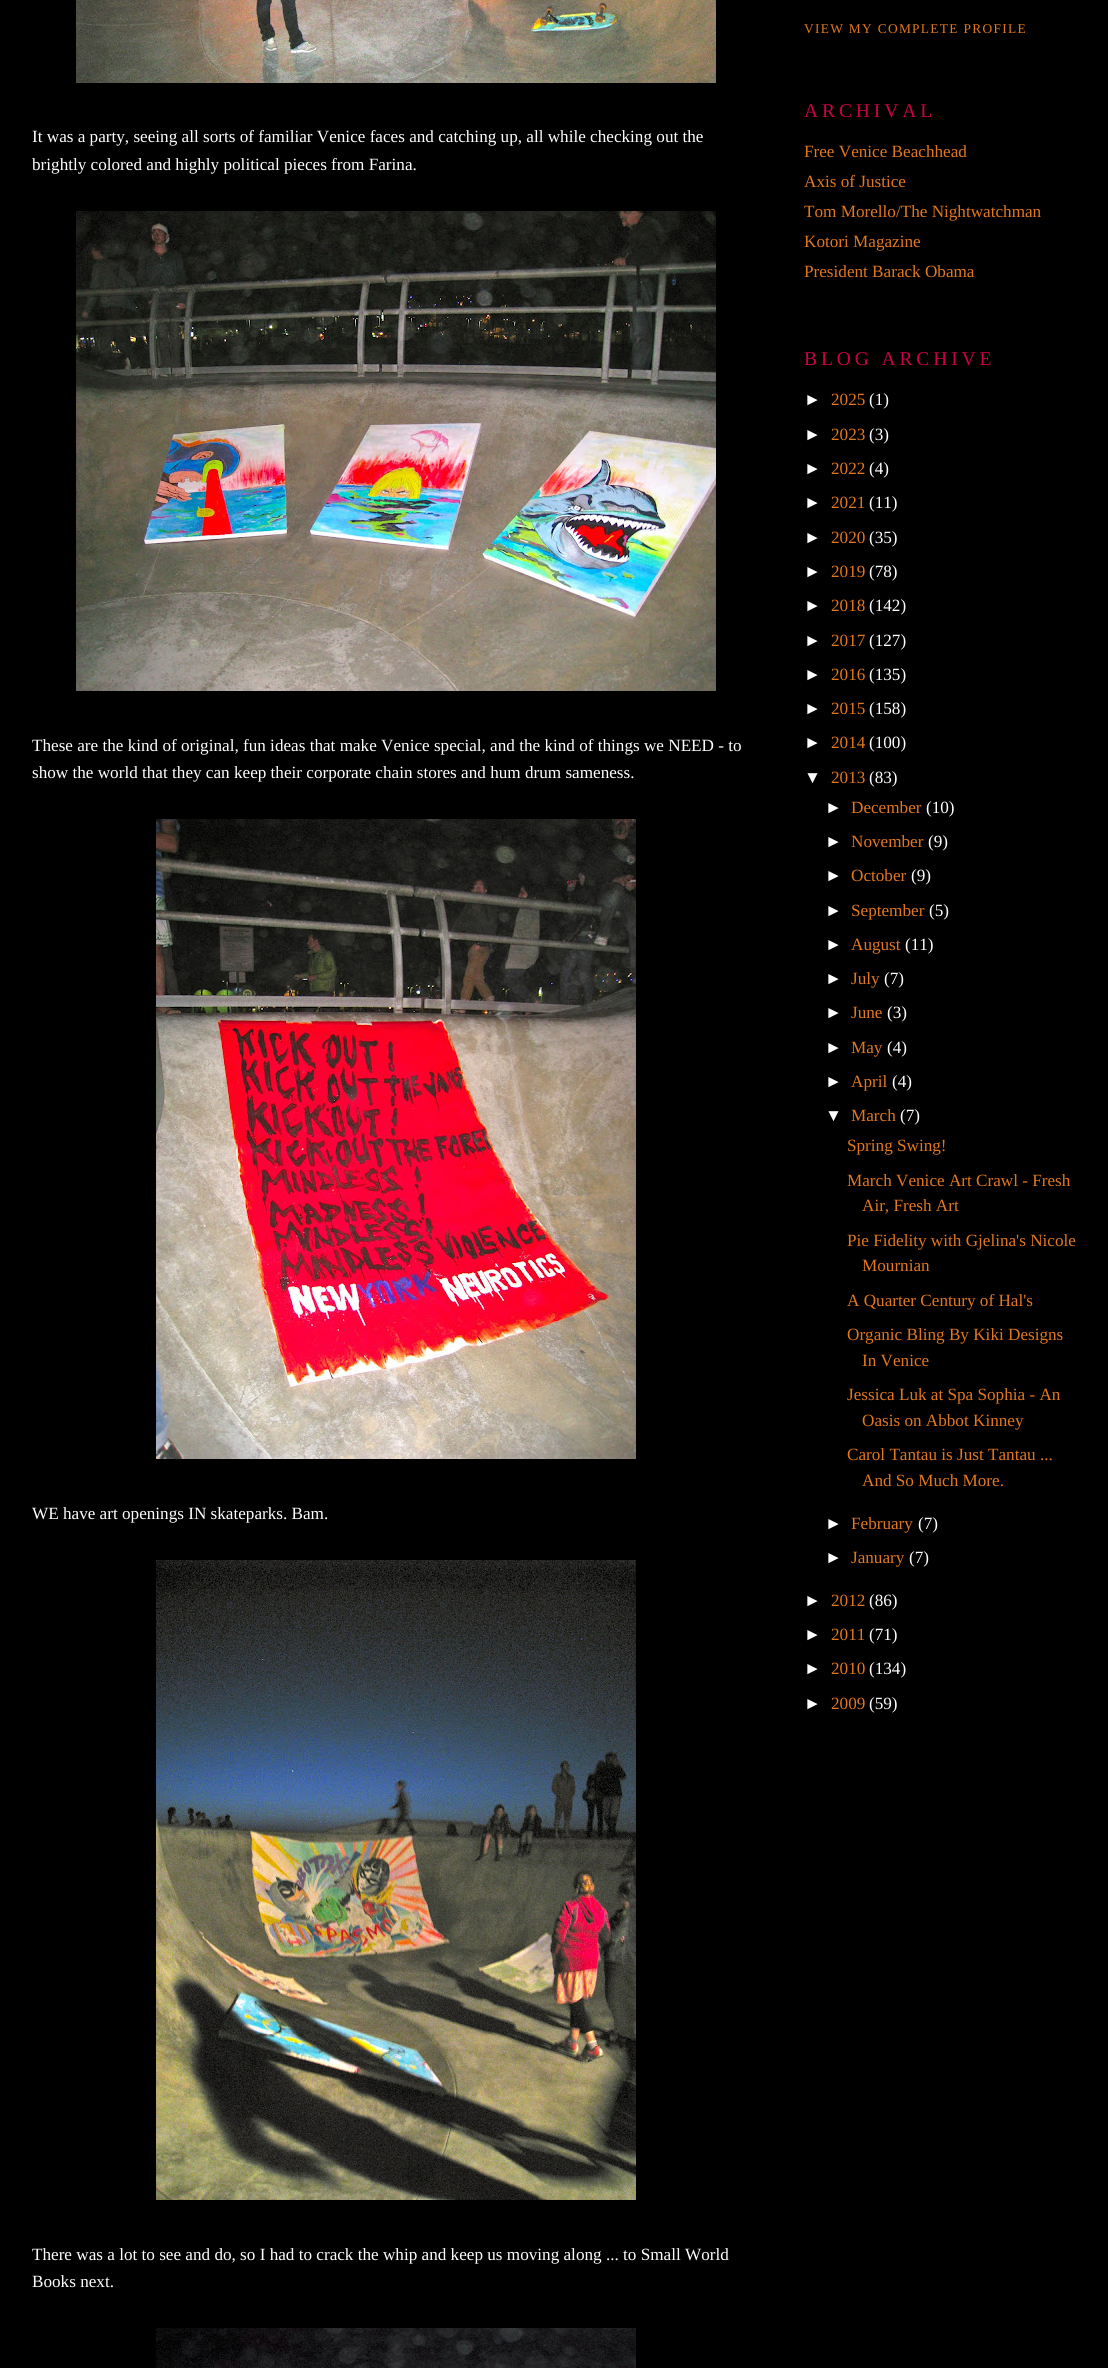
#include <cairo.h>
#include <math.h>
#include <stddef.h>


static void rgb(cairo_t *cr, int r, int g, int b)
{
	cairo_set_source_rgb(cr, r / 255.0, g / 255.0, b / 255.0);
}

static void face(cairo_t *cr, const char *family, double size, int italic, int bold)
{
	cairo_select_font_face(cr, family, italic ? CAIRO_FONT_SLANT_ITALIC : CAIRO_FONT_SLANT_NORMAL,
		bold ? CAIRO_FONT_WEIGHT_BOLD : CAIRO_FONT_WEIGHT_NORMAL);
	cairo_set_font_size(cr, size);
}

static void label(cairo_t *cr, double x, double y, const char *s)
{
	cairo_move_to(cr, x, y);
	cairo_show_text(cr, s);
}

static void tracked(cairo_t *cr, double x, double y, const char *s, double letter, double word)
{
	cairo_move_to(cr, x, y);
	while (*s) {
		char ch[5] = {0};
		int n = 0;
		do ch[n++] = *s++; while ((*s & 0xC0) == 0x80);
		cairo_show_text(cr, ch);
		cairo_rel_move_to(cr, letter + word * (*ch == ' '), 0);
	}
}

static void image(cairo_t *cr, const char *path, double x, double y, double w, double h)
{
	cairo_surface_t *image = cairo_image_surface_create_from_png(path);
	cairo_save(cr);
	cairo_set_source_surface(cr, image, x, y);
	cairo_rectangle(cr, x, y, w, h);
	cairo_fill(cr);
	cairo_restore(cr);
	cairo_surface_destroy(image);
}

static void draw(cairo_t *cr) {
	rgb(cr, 0, 0, 0);
	cairo_paint(cr);
	image(cr, "image0.png", 76, 0, 640, 83);
	face(cr, "Liberation Serif", 17.15, 0, 0);
	rgb(cr, 255, 255, 255);
	label(cr, 32, 142, "It was a party, seeing all sorts of familiar Venice faces and catching up, all while checking out the");
	label(cr, 32, 170, "brightly colored and highly political pieces from Farina.");
	image(cr, "image1.png", 76, 211, 640, 480);
	label(cr, 32, 751, "These are the kind of original, fun ideas that make Venice special, and the kind of things we NEED - to");
	label(cr, 32, 778, "show the world that they can keep their corporate chain stores and hum drum sameness.");
	image(cr, "image2.png", 156, 819, 480, 640);
	label(cr, 32, 1519, "WE have art openings IN skateparks. Bam.");
	image(cr, "image3.png", 156, 1560, 480, 640);
	label(cr, 32, 2260, "There was a lot to see and do, so I had to crack the whip and keep us moving along ... to Small World");
	label(cr, 32, 2287, "Books next.");
	image(cr, "image4.png", 156, 2328, 480, 40);
	face(cr, "Liberation Serif", 13.4, 0, 0);
	rgb(cr, 225, 119, 30);
	tracked(cr, 804, 33, "VIEW MY COMPLETE PROFILE", 1.3, 0);
	face(cr, "Liberation Serif", 19.5, 0, 0);
	rgb(cr, 204, 0, 73);
	tracked(cr, 804, 117, "ARCHIVAL", 3.9, 0);
	face(cr, "Liberation Serif", 17.15, 0, 0);
	rgb(cr, 225, 119, 30);
	label(cr, 804, 157, "Free Venice Beachhead");
	label(cr, 804, 187, "Axis of Justice");
	label(cr, 804, 217, "Tom Morello/The Nightwatchman");
	label(cr, 804, 247, "Kotori Magazine");
	label(cr, 804, 277, "President Barack Obama");
	face(cr, "Liberation Serif", 19.5, 0, 0);
	rgb(cr, 204, 0, 73);
	tracked(cr, 804, 365, "BLOG ARCHIVE", 3.9, 0);
	face(cr, "Liberation Sans", 17.15, 0, 0);
	rgb(cr, 255, 255, 255);
	label(cr, 804, 405, "►");
	face(cr, "Liberation Serif", 17.15, 0, 0);
	rgb(cr, 225, 119, 30);
	label(cr, 831, 405, "2025");
	rgb(cr, 255, 255, 255);
	label(cr, 869, 405, "(1)");
	face(cr, "Liberation Sans", 17.15, 0, 0);
	label(cr, 804, 440, "►");
	face(cr, "Liberation Serif", 17.15, 0, 0);
	rgb(cr, 225, 119, 30);
	label(cr, 831, 440, "2023");
	rgb(cr, 255, 255, 255);
	label(cr, 869, 440, "(3)");
	face(cr, "Liberation Sans", 17.15, 0, 0);
	label(cr, 804, 474, "►");
	face(cr, "Liberation Serif", 17.15, 0, 0);
	rgb(cr, 225, 119, 30);
	label(cr, 831, 474, "2022");
	rgb(cr, 255, 255, 255);
	label(cr, 869, 474, "(4)");
	face(cr, "Liberation Sans", 17.15, 0, 0);
	label(cr, 804, 508, "►");
	face(cr, "Liberation Serif", 17.15, 0, 0);
	rgb(cr, 225, 119, 30);
	label(cr, 831, 508, "2021");
	rgb(cr, 255, 255, 255);
	label(cr, 869, 508, "(11)");
	face(cr, "Liberation Sans", 17.15, 0, 0);
	label(cr, 804, 543, "►");
	face(cr, "Liberation Serif", 17.15, 0, 0);
	rgb(cr, 225, 119, 30);
	label(cr, 831, 543, "2020");
	rgb(cr, 255, 255, 255);
	label(cr, 869, 543, "(35)");
	face(cr, "Liberation Sans", 17.15, 0, 0);
	label(cr, 804, 577, "►");
	face(cr, "Liberation Serif", 17.15, 0, 0);
	rgb(cr, 225, 119, 30);
	label(cr, 831, 577, "2019");
	rgb(cr, 255, 255, 255);
	label(cr, 869, 577, "(78)");
	face(cr, "Liberation Sans", 17.15, 0, 0);
	label(cr, 804, 611, "►");
	face(cr, "Liberation Serif", 17.15, 0, 0);
	rgb(cr, 225, 119, 30);
	label(cr, 831, 611, "2018");
	rgb(cr, 255, 255, 255);
	label(cr, 869, 611, "(142)");
	face(cr, "Liberation Sans", 17.15, 0, 0);
	label(cr, 804, 646, "►");
	face(cr, "Liberation Serif", 17.15, 0, 0);
	rgb(cr, 225, 119, 30);
	label(cr, 831, 646, "2017");
	rgb(cr, 255, 255, 255);
	label(cr, 869, 646, "(127)");
	face(cr, "Liberation Sans", 17.15, 0, 0);
	label(cr, 804, 680, "►");
	face(cr, "Liberation Serif", 17.15, 0, 0);
	rgb(cr, 225, 119, 30);
	label(cr, 831, 680, "2016");
	rgb(cr, 255, 255, 255);
	label(cr, 869, 680, "(135)");
	face(cr, "Liberation Sans", 17.15, 0, 0);
	label(cr, 804, 714, "►");
	face(cr, "Liberation Serif", 17.15, 0, 0);
	rgb(cr, 225, 119, 30);
	label(cr, 831, 714, "2015");
	rgb(cr, 255, 255, 255);
	label(cr, 869, 714, "(158)");
	face(cr, "Liberation Sans", 17.15, 0, 0);
	label(cr, 804, 748, "►");
	face(cr, "Liberation Serif", 17.15, 0, 0);
	rgb(cr, 225, 119, 30);
	label(cr, 831, 748, "2014");
	rgb(cr, 255, 255, 255);
	label(cr, 869, 748, "(100)");
	face(cr, "Liberation Sans", 17.15, 0, 0);
	label(cr, 804, 783, "▼");
	face(cr, "Liberation Serif", 17.15, 0, 0);
	rgb(cr, 225, 119, 30);
	label(cr, 831, 783, "2013");
	rgb(cr, 255, 255, 255);
	label(cr, 869, 783, "(83)");
	face(cr, "Liberation Sans", 17.15, 0, 0);
	label(cr, 825, 813, "►");
	face(cr, "Liberation Serif", 17.15, 0, 0);
	rgb(cr, 225, 119, 30);
	label(cr, 851, 813, "December");
	rgb(cr, 255, 255, 255);
	label(cr, 926, 813, "(10)");
	face(cr, "Liberation Sans", 17.15, 0, 0);
	label(cr, 825, 847, "►");
	face(cr, "Liberation Serif", 17.15, 0, 0);
	rgb(cr, 225, 119, 30);
	label(cr, 851, 847, "November");
	rgb(cr, 255, 255, 255);
	label(cr, 928, 847, "(9)");
	face(cr, "Liberation Sans", 17.15, 0, 0);
	label(cr, 825, 881, "►");
	face(cr, "Liberation Serif", 17.15, 0, 0);
	rgb(cr, 225, 119, 30);
	label(cr, 851, 881, "October");
	rgb(cr, 255, 255, 255);
	label(cr, 911, 881, "(9)");
	face(cr, "Liberation Sans", 17.15, 0, 0);
	label(cr, 825, 916, "►");
	face(cr, "Liberation Serif", 17.15, 0, 0);
	rgb(cr, 225, 119, 30);
	label(cr, 851, 916, "September");
	rgb(cr, 255, 255, 255);
	label(cr, 929, 916, "(5)");
	face(cr, "Liberation Sans", 17.15, 0, 0);
	label(cr, 825, 950, "►");
	face(cr, "Liberation Serif", 17.15, 0, 0);
	rgb(cr, 225, 119, 30);
	label(cr, 851, 950, "August");
	rgb(cr, 255, 255, 255);
	label(cr, 905, 950, "(11)");
	face(cr, "Liberation Sans", 17.15, 0, 0);
	label(cr, 825, 984, "►");
	face(cr, "Liberation Serif", 17.15, 0, 0);
	rgb(cr, 225, 119, 30);
	label(cr, 851, 984, "July");
	rgb(cr, 255, 255, 255);
	label(cr, 884, 984, "(7)");
	face(cr, "Liberation Sans", 17.15, 0, 0);
	label(cr, 825, 1018, "►");
	face(cr, "Liberation Serif", 17.15, 0, 0);
	rgb(cr, 225, 119, 30);
	label(cr, 851, 1018, "June");
	rgb(cr, 255, 255, 255);
	label(cr, 887, 1018, "(3)");
	face(cr, "Liberation Sans", 17.15, 0, 0);
	label(cr, 825, 1053, "►");
	face(cr, "Liberation Serif", 17.15, 0, 0);
	rgb(cr, 225, 119, 30);
	label(cr, 851, 1053, "May");
	rgb(cr, 255, 255, 255);
	label(cr, 887, 1053, "(4)");
	face(cr, "Liberation Sans", 17.15, 0, 0);
	label(cr, 825, 1087, "►");
	face(cr, "Liberation Serif", 17.15, 0, 0);
	rgb(cr, 225, 119, 30);
	label(cr, 851, 1087, "April");
	rgb(cr, 255, 255, 255);
	label(cr, 892, 1087, "(4)");
	face(cr, "Liberation Sans", 17.15, 0, 0);
	label(cr, 825, 1121, "▼");
	face(cr, "Liberation Serif", 17.15, 0, 0);
	rgb(cr, 225, 119, 30);
	label(cr, 851, 1121, "March");
	rgb(cr, 255, 255, 255);
	label(cr, 900, 1121, "(7)");
	rgb(cr, 225, 119, 30);
	label(cr, 847, 1151, "Spring Swing!");
	label(cr, 847, 1186, "March Venice Art Crawl - Fresh");
	label(cr, 862, 1211, "Air, Fresh Art");
	label(cr, 847, 1246, "Pie Fidelity with Gjelina's Nicole");
	label(cr, 862, 1271, "Mournian");
	label(cr, 847, 1306, "A Quarter Century of Hal's");
	label(cr, 847, 1340, "Organic Bling By Kiki Designs");
	label(cr, 862, 1366, "In Venice");
	label(cr, 847, 1400, "Jessica Luk at Spa Sophia - An");
	label(cr, 862, 1426, "Oasis on Abbot Kinney");
	label(cr, 847, 1460, "Carol Tantau is Just Tantau ...");
	label(cr, 862, 1486, "And So Much More.");
	face(cr, "Liberation Sans", 17.15, 0, 0);
	rgb(cr, 255, 255, 255);
	label(cr, 825, 1529, "►");
	face(cr, "Liberation Serif", 17.15, 0, 0);
	rgb(cr, 225, 119, 30);
	label(cr, 851, 1529, "February");
	rgb(cr, 255, 255, 255);
	label(cr, 918, 1529, "(7)");
	face(cr, "Liberation Sans", 17.15, 0, 0);
	label(cr, 825, 1563, "►");
	face(cr, "Liberation Serif", 17.15, 0, 0);
	rgb(cr, 225, 119, 30);
	label(cr, 851, 1563, "January");
	rgb(cr, 255, 255, 255);
	label(cr, 909, 1563, "(7)");
	face(cr, "Liberation Sans", 17.15, 0, 0);
	label(cr, 804, 1606, "►");
	face(cr, "Liberation Serif", 17.15, 0, 0);
	rgb(cr, 225, 119, 30);
	label(cr, 831, 1606, "2012");
	rgb(cr, 255, 255, 255);
	label(cr, 869, 1606, "(86)");
	face(cr, "Liberation Sans", 17.15, 0, 0);
	label(cr, 804, 1640, "►");
	face(cr, "Liberation Serif", 17.15, 0, 0);
	rgb(cr, 225, 119, 30);
	label(cr, 831, 1640, "2011");
	rgb(cr, 255, 255, 255);
	label(cr, 869, 1640, "(71)");
	face(cr, "Liberation Sans", 17.15, 0, 0);
	label(cr, 804, 1674, "►");
	face(cr, "Liberation Serif", 17.15, 0, 0);
	rgb(cr, 225, 119, 30);
	label(cr, 831, 1674, "2010");
	rgb(cr, 255, 255, 255);
	label(cr, 869, 1674, "(134)");
	face(cr, "Liberation Sans", 17.15, 0, 0);
	label(cr, 804, 1709, "►");
	face(cr, "Liberation Serif", 17.15, 0, 0);
	rgb(cr, 225, 119, 30);
	label(cr, 831, 1709, "2009");
	rgb(cr, 255, 255, 255);
	label(cr, 869, 1709, "(59)");
}

int main(void) {
	cairo_surface_t *surface = cairo_image_surface_create(CAIRO_FORMAT_RGB24, 1108, 2368);
	cairo_t *cr = cairo_create(surface);
	cairo_font_options_t *options = cairo_font_options_create();
	cairo_font_options_set_hint_metrics(options, CAIRO_HINT_METRICS_OFF);
	cairo_font_options_set_hint_style(options, CAIRO_HINT_STYLE_NONE);
	cairo_set_font_options(cr, options);
	cairo_set_miter_limit(cr, 4);
	draw(cr);
	cairo_surface_write_to_png(surface, "render.png");
	cairo_font_options_destroy(options);
	cairo_destroy(cr);
	cairo_surface_destroy(surface);
	return 0;
}
